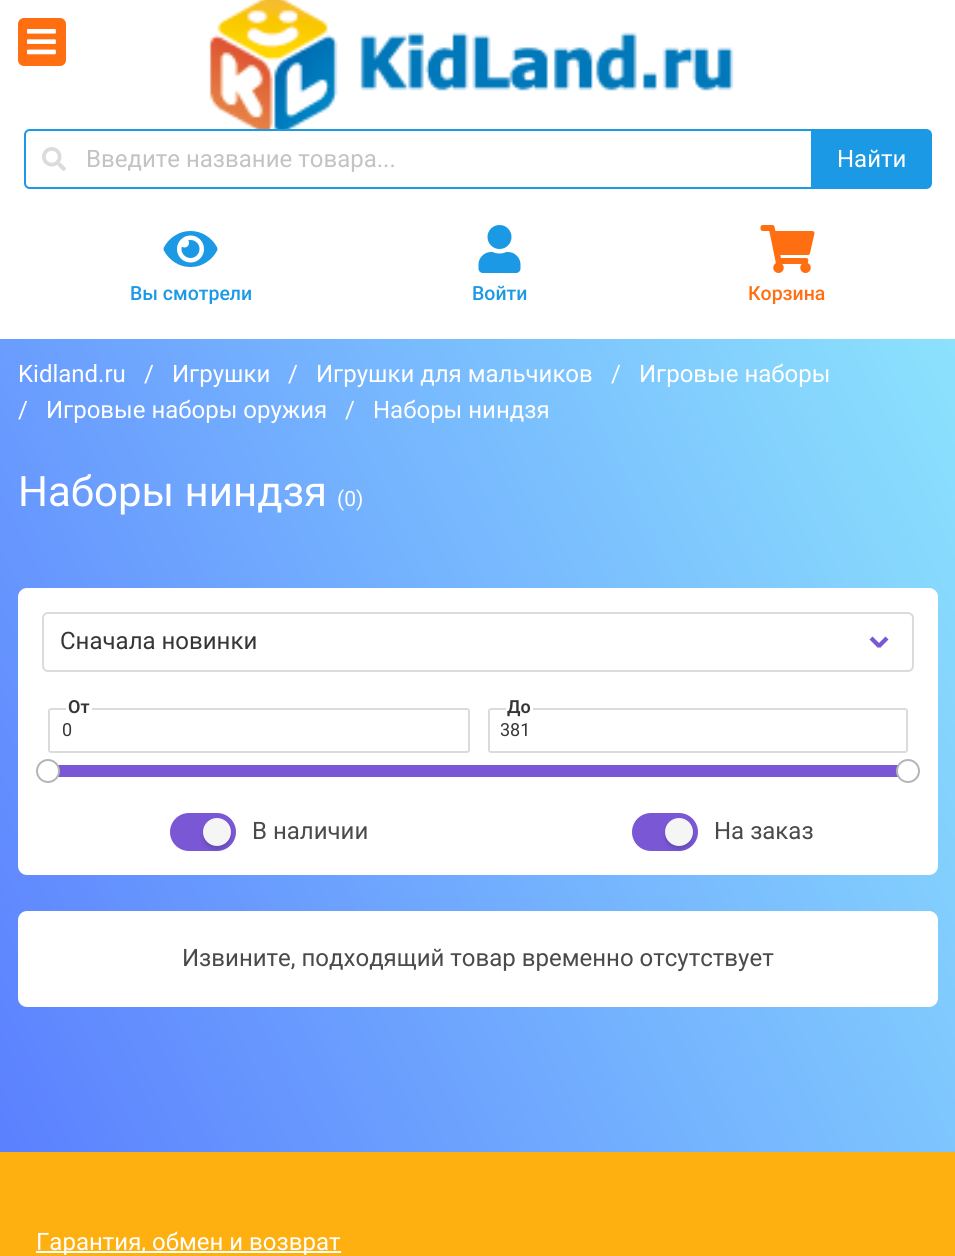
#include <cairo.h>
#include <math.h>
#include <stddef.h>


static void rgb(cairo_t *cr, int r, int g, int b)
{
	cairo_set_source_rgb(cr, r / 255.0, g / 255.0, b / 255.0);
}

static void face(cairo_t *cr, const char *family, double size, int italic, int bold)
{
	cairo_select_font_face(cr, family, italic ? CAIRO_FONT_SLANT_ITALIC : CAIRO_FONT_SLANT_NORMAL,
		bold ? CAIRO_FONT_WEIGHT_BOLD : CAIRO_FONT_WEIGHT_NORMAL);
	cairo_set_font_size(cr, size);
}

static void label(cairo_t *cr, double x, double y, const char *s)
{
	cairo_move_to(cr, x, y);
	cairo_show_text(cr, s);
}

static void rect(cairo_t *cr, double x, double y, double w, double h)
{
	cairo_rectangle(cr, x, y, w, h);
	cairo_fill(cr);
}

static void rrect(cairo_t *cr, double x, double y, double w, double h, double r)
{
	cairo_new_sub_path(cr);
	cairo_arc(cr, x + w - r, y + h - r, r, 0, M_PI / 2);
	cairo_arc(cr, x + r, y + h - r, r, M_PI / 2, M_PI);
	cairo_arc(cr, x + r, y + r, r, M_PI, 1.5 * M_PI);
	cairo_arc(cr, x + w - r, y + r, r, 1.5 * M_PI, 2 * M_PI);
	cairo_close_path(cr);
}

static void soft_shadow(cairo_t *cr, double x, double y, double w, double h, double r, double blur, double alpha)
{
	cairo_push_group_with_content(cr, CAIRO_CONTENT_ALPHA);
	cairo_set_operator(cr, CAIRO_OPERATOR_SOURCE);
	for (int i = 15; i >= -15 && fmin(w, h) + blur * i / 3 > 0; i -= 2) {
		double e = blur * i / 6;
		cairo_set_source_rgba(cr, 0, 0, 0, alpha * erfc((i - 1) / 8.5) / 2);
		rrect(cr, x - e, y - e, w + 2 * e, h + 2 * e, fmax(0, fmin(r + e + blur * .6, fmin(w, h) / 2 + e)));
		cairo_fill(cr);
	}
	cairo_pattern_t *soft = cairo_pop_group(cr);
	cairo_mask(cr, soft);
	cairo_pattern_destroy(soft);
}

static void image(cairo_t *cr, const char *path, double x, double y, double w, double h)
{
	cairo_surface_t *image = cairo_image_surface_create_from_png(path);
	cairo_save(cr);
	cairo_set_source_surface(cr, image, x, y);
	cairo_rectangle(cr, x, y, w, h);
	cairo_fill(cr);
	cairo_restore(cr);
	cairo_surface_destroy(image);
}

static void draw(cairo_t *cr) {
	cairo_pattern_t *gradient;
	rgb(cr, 255, 255, 255);
	cairo_paint(cr);
	gradient = cairo_pattern_create_linear(-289, 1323, 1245, 575);
	cairo_pattern_add_color_stop_rgba(gradient, 0, 0.306, 0.396, 1, 1);
	cairo_pattern_add_color_stop_rgba(gradient, 1, 0.573, 0.937, 0.992, 1);
	cairo_set_source(cr, gradient);
	cairo_pattern_destroy(gradient);
	rect(cr, 0, 339, 955, 813);
	rgb(cr, 255, 111, 17);
	rrect(cr, 18, 18, 48, 48, 6);
	cairo_fill(cr);
	image(cr, "image0.png", 27, 29, 29, 26);
	image(cr, "image1.png", 209, 0, 525, 129);
	cairo_new_path(cr);
	cairo_move_to(cr, 30, 130);
	cairo_line_to(cr, 812, 130);
	cairo_line_to(cr, 812, 188);
	cairo_line_to(cr, 30, 188);
	cairo_curve_to(cr, 27, 188, 25, 186, 25, 183);
	cairo_line_to(cr, 25, 135);
	cairo_curve_to(cr, 25, 132, 27, 130, 30, 130);
	cairo_close_path(cr);
	rgb(cr, 27, 153, 228);
	cairo_stroke(cr);
	image(cr, "image2.png", 42, 147, 24, 24);
	face(cr, "Roboto", 24, 0, 0);
	rgb(cr, 195, 195, 195);
	label(cr, 86, 167, "Введите название товара...");
	rgb(cr, 27, 153, 228);
	cairo_new_path(cr);
	cairo_move_to(cr, 812, 129);
	cairo_line_to(cr, 926, 129);
	cairo_curve_to(cr, 929.5, 129, 932, 131.5, 932, 135);
	cairo_line_to(cr, 932, 183);
	cairo_curve_to(cr, 932, 186.5, 929.5, 189, 926, 189);
	cairo_line_to(cr, 812, 189);
	cairo_close_path(cr);
	cairo_fill(cr);
	rgb(cr, 255, 255, 255);
	label(cr, 837, 167, "Найти");
	image(cr, "image3.png", 163, 231, 55, 36);
	face(cr, "Roboto Medium", 19.5, 0, 0);
	rgb(cr, 27, 153, 228);
	label(cr, 130, 300, "Вы смотрели");
	image(cr, "image4.png", 478, 225, 43, 48);
	label(cr, 472, 300, "Войти");
	image(cr, "image5.png", 760, 225, 55, 48);
	rgb(cr, 255, 111, 17);
	label(cr, 748, 300, "Корзина");
	face(cr, "Roboto", 24, 0, 0);
	rgb(cr, 255, 255, 255);
	label(cr, 18, 382, "Kidland.ru");
	label(cr, 144, 382, "/");
	label(cr, 172, 382, "Игрушки");
	label(cr, 288, 382, "/");
	label(cr, 316, 382, "Игрушки для мальчиков");
	label(cr, 611, 382, "/");
	label(cr, 639, 382, "Игровые наборы");
	label(cr, 18, 418, "/");
	label(cr, 46, 418, "Игровые наборы оружия");
	label(cr, 345, 418, "/");
	label(cr, 373, 418, "Наборы ниндзя");
	face(cr, "Roboto", 42, 0, 0);
	label(cr, 18, 506, "Наборы ниндзя");
	face(cr, "Roboto", 21, 0, 0);
	label(cr, 337, 506, "(0)");
	rrect(cr, 18, 588, 920, 287, 9);
	cairo_fill(cr);
	rrect(cr, 43, 613, 870, 58, 5);
	rgb(cr, 219, 219, 219);
	cairo_stroke(cr);
	face(cr, "Roboto", 24, 0, 0);
	rgb(cr, 54, 54, 54);
	label(cr, 60, 649, "Сначала новинки");
	rgb(cr, 121, 87, 213);
	cairo_new_path(cr);
	cairo_move_to(cr, 877, 645);
	cairo_line_to(cr, 885.5, 636.5);
	cairo_line_to(cr, 888.5, 639.5);
	cairo_line_to(cr, 880, 648);
	cairo_close_path(cr);
	cairo_fill(cr);
	cairo_new_path(cr);
	cairo_move_to(cr, 869.5, 639.5);
	cairo_line_to(cr, 872.5, 636.5);
	cairo_line_to(cr, 881, 645);
	cairo_line_to(cr, 878, 648);
	cairo_close_path(cr);
	cairo_fill(cr);
	rrect(cr, 49, 709, 420, 43, 2);
	rgb(cr, 219, 219, 219);
	cairo_stroke(cr);
	rgb(cr, 255, 255, 255);
	rect(cr, 66, 708, 26, 2);
	face(cr, "Roboto SemiBold", 18, 0, 0);
	rgb(cr, 54, 54, 54);
	label(cr, 68, 713, "От");
	face(cr, "Roboto", 18, 0, 0);
	label(cr, 62, 736, "0");
	rrect(cr, 489, 709, 418, 43, 2);
	rgb(cr, 219, 219, 219);
	cairo_stroke(cr);
	rgb(cr, 255, 255, 255);
	rect(cr, 506, 708, 27, 2);
	face(cr, "Roboto SemiBold", 18, 0, 0);
	rgb(cr, 54, 54, 54);
	label(cr, 507, 713, "До");
	face(cr, "Roboto", 18, 0, 0);
	label(cr, 500, 736, "381");
	rgb(cr, 121, 87, 213);
	rect(cr, 58, 765, 840, 12);
	rgb(cr, 255, 255, 255);
	cairo_new_path(cr);
	cairo_arc(cr, 48, 771, 11, 0, 2 * M_PI);
	cairo_fill_preserve(cr);
	rgb(cr, 181, 181, 181);
	cairo_stroke(cr);
	rgb(cr, 255, 255, 255);
	cairo_arc(cr, 908, 771, 11, 0, 2 * M_PI);
	cairo_fill_preserve(cr);
	rgb(cr, 181, 181, 181);
	cairo_stroke(cr);
	rgb(cr, 121, 87, 213);
	rrect(cr, 170, 813, 66, 38, 19);
	cairo_fill(cr);
	rgb(cr, 0, 0, 0);
	soft_shadow(cr, 203, 822, 28, 29, 14, 2, 0.05);
	soft_shadow(cr, 203, 821, 28, 28, 14, 1.5, 0.1);
	rgb(cr, 245, 245, 245);
	cairo_arc(cr, 217, 832, 14, 0, 2 * M_PI);
	cairo_fill(cr);
	face(cr, "Roboto", 24, 0, 0);
	rgb(cr, 74, 74, 74);
	label(cr, 252, 839, "В наличии");
	rgb(cr, 121, 87, 213);
	rrect(cr, 632, 813, 66, 38, 19);
	cairo_fill(cr);
	rgb(cr, 0, 0, 0);
	soft_shadow(cr, 665, 822, 28, 29, 14, 2, 0.05);
	soft_shadow(cr, 665, 821, 28, 28, 14, 1.5, 0.1);
	rgb(cr, 245, 245, 245);
	cairo_arc(cr, 679, 832, 14, 0, 2 * M_PI);
	cairo_fill(cr);
	rgb(cr, 74, 74, 74);
	label(cr, 714, 839, "На заказ");
	rgb(cr, 255, 255, 255);
	rrect(cr, 18, 911, 920, 96, 9);
	cairo_fill(cr);
	rgb(cr, 74, 74, 74);
	label(cr, 182, 966, "Извините, подходящий товар временно отсутствует");
	rgb(cr, 255, 176, 17);
	rect(cr, 0, 1152, 955, 104);
	rgb(cr, 255, 255, 255);
	rect(cr, 36, 1251, 305, 2);
	label(cr, 36, 1250, "Гарантия, обмен и возврат");
}

int main(void) {
	cairo_surface_t *surface = cairo_image_surface_create(CAIRO_FORMAT_RGB24, 955, 1256);
	cairo_t *cr = cairo_create(surface);
	cairo_font_options_t *options = cairo_font_options_create();
	cairo_font_options_set_hint_metrics(options, CAIRO_HINT_METRICS_OFF);
	cairo_font_options_set_hint_style(options, CAIRO_HINT_STYLE_NONE);
	cairo_set_font_options(cr, options);
	cairo_set_miter_limit(cr, 4);
	draw(cr);
	cairo_surface_write_to_png(surface, "render.png");
	cairo_font_options_destroy(options);
	cairo_destroy(cr);
	cairo_surface_destroy(surface);
	return 0;
}
